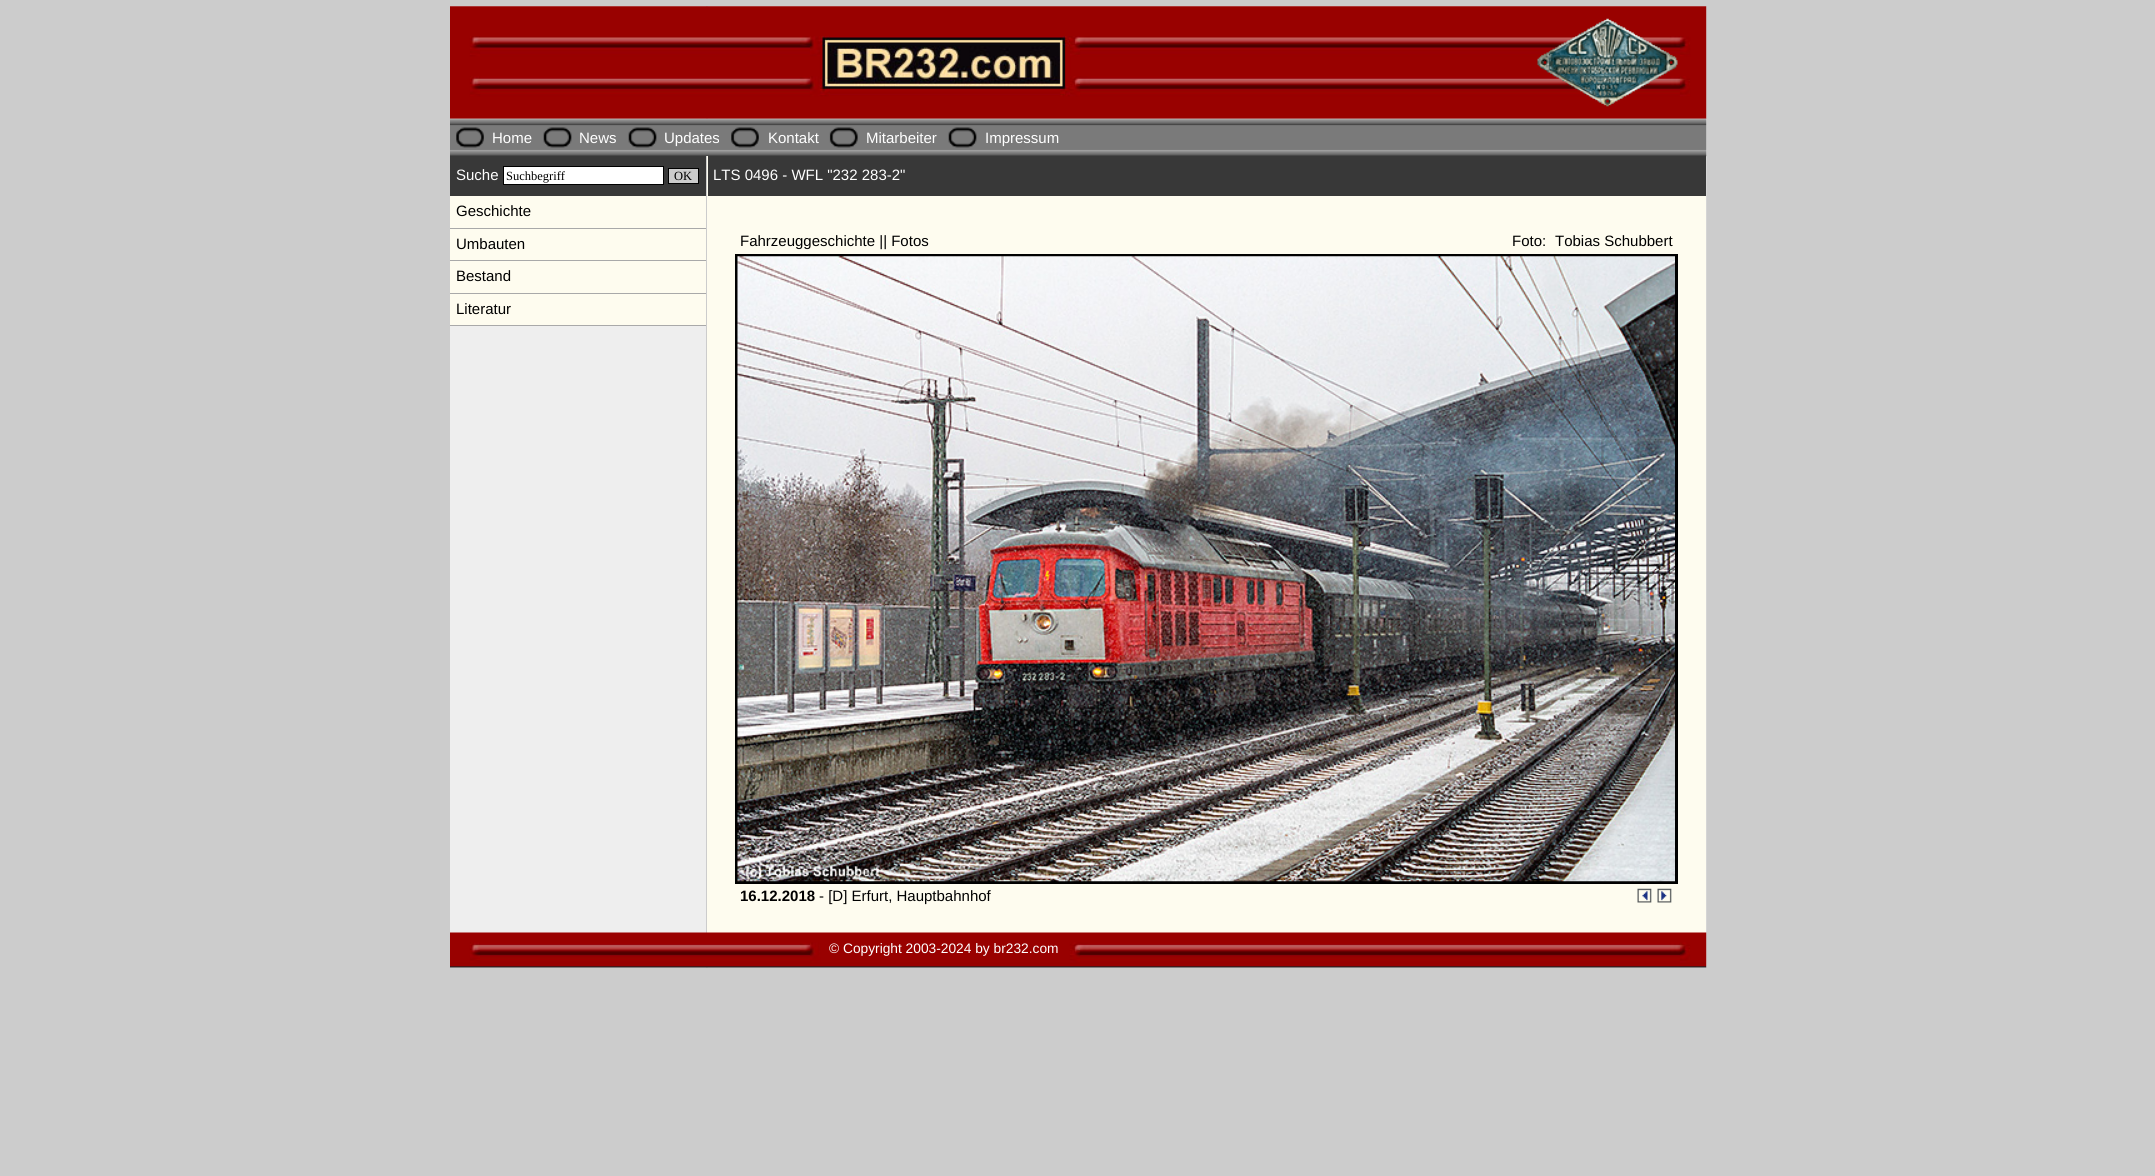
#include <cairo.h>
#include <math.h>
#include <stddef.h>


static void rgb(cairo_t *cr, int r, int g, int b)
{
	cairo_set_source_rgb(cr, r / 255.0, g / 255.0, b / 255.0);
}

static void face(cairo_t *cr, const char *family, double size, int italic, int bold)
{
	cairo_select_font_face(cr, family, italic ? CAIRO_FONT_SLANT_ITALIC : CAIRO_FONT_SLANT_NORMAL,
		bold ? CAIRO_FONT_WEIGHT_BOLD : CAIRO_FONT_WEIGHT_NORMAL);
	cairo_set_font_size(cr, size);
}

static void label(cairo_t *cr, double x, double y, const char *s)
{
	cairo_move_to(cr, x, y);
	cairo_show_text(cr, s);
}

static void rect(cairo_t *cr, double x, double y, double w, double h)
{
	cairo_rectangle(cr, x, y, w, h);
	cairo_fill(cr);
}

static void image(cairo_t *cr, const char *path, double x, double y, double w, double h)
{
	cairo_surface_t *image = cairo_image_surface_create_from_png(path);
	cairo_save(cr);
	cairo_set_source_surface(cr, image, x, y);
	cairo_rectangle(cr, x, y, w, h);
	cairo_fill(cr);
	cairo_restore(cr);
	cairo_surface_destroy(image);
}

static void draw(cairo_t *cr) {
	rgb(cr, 204, 204, 204);
	cairo_paint(cr);
	image(cr, "image0.png", 450, 6, 1257, 962);
	image(cr, "image1.png", 450, 6, 1257, 113);
	image(cr, "image2.png", 1537, 18, 141, 89);
	image(cr, "image3.png", 450, 118, 1257, 39);
	image(cr, "image4.png", 456, 127, 28, 21);
	face(cr, "Liberation Sans", 15, 0, 0);
	rgb(cr, 255, 255, 255);
	label(cr, 492, 143, "Home");
	image(cr, "image5.png", 543, 127, 29, 21);
	label(cr, 579, 143, "News");
	image(cr, "image5.png", 628, 127, 29, 21);
	label(cr, 664, 143, "Updates");
	image(cr, "image6.png", 731, 127, 28, 21);
	label(cr, 768, 143, "Kontakt");
	image(cr, "image7.png", 829, 127, 29, 21);
	label(cr, 866, 143, "Mitarbeiter");
	image(cr, "image5.png", 948, 127, 29, 21);
	label(cr, 985, 143, "Impressum");
	rgb(cr, 56, 56, 56);
	rect(cr, 450, 156, 256, 40);
	rgb(cr, 255, 255, 255);
	label(cr, 456, 180, "Suche");
	cairo_rectangle(cr, 503.5, 166.5, 160, 18);
	cairo_fill_preserve(cr);
	rgb(cr, 0, 0, 0);
	cairo_set_line_width(cr, 1);
	cairo_stroke(cr);
	face(cr, "Liberation Serif", 12.5, 0, 0);
	label(cr, 506, 180, "Suchbegriff");
	rgb(cr, 204, 204, 204);
	cairo_rectangle(cr, 668.5, 168.5, 30, 15);
	cairo_fill_preserve(cr);
	rgb(cr, 0, 0, 0);
	cairo_stroke(cr);
	label(cr, 674, 180, "OK");
	rgb(cr, 254, 252, 239);
	rect(cr, 450, 196, 256, 32);
	rgb(cr, 169, 169, 169);
	rect(cr, 450, 228, 256, 1);
	face(cr, "Liberation Sans", 15, 0, 0);
	rgb(cr, 0, 0, 0);
	label(cr, 456, 216, "Geschichte");
	rgb(cr, 254, 252, 239);
	rect(cr, 450, 229, 256, 31);
	rgb(cr, 169, 169, 169);
	rect(cr, 450, 260, 256, 1);
	rgb(cr, 0, 0, 0);
	label(cr, 456, 249, "Umbauten");
	rgb(cr, 254, 252, 239);
	rect(cr, 450, 261, 256, 32);
	rgb(cr, 169, 169, 169);
	rect(cr, 450, 293, 256, 1);
	rgb(cr, 0, 0, 0);
	label(cr, 456, 281, "Bestand");
	rgb(cr, 254, 252, 239);
	rect(cr, 450, 294, 256, 31);
	rgb(cr, 169, 169, 169);
	rect(cr, 450, 325, 256, 1);
	rgb(cr, 0, 0, 0);
	label(cr, 456, 314, "Literatur");
	rgb(cr, 254, 252, 239);
	rect(cr, 707, 156, 999, 777);
	rgb(cr, 204, 204, 204);
	rect(cr, 706, 156, 1, 777);
	rgb(cr, 56, 56, 56);
	rect(cr, 708, 156, 998, 40);
	rgb(cr, 255, 255, 255);
	label(cr, 713, 180, "LTS 0496 - WFL \"232 283-2\"");
	rgb(cr, 0, 0, 0);
	label(cr, 740, 246, "Fahrzeuggeschichte || Fotos");
	label(cr, 1512, 246, "Foto:");
	label(cr, 1555, 246, "Tobias Schubbert");
	cairo_rectangle(cr, 736.5, 255.5, 940, 627);
	cairo_set_line_width(cr, 3);
	cairo_stroke(cr);
	image(cr, "image8.png", 737, 256, 938, 626);
	face(cr, "Liberation Sans", 15, 0, 1);
	label(cr, 740, 901, "16.12.2018");
	face(cr, "Liberation Sans", 15, 0, 0);
	label(cr, 819, 901, "- [D] Erfurt, Hauptbahnhof");
	image(cr, "image9.png", 1637, 888, 15, 15);
	image(cr, "image10.png", 1657, 888, 15, 15);
	image(cr, "image11.png", 450, 932, 1257, 36);
	face(cr, "Liberation Sans", 13.75, 0, 0);
	rgb(cr, 255, 255, 255);
	label(cr, 829, 953, "© Copyright 2003-2024 by br232.com");
}

int main(void) {
	cairo_surface_t *surface = cairo_image_surface_create(CAIRO_FORMAT_RGB24, 2155, 1176);
	cairo_t *cr = cairo_create(surface);
	cairo_font_options_t *options = cairo_font_options_create();
	cairo_font_options_set_hint_metrics(options, CAIRO_HINT_METRICS_OFF);
	cairo_font_options_set_hint_style(options, CAIRO_HINT_STYLE_NONE);
	cairo_set_font_options(cr, options);
	cairo_set_miter_limit(cr, 4);
	draw(cr);
	cairo_surface_write_to_png(surface, "render.png");
	cairo_font_options_destroy(options);
	cairo_destroy(cr);
	cairo_surface_destroy(surface);
	return 0;
}
